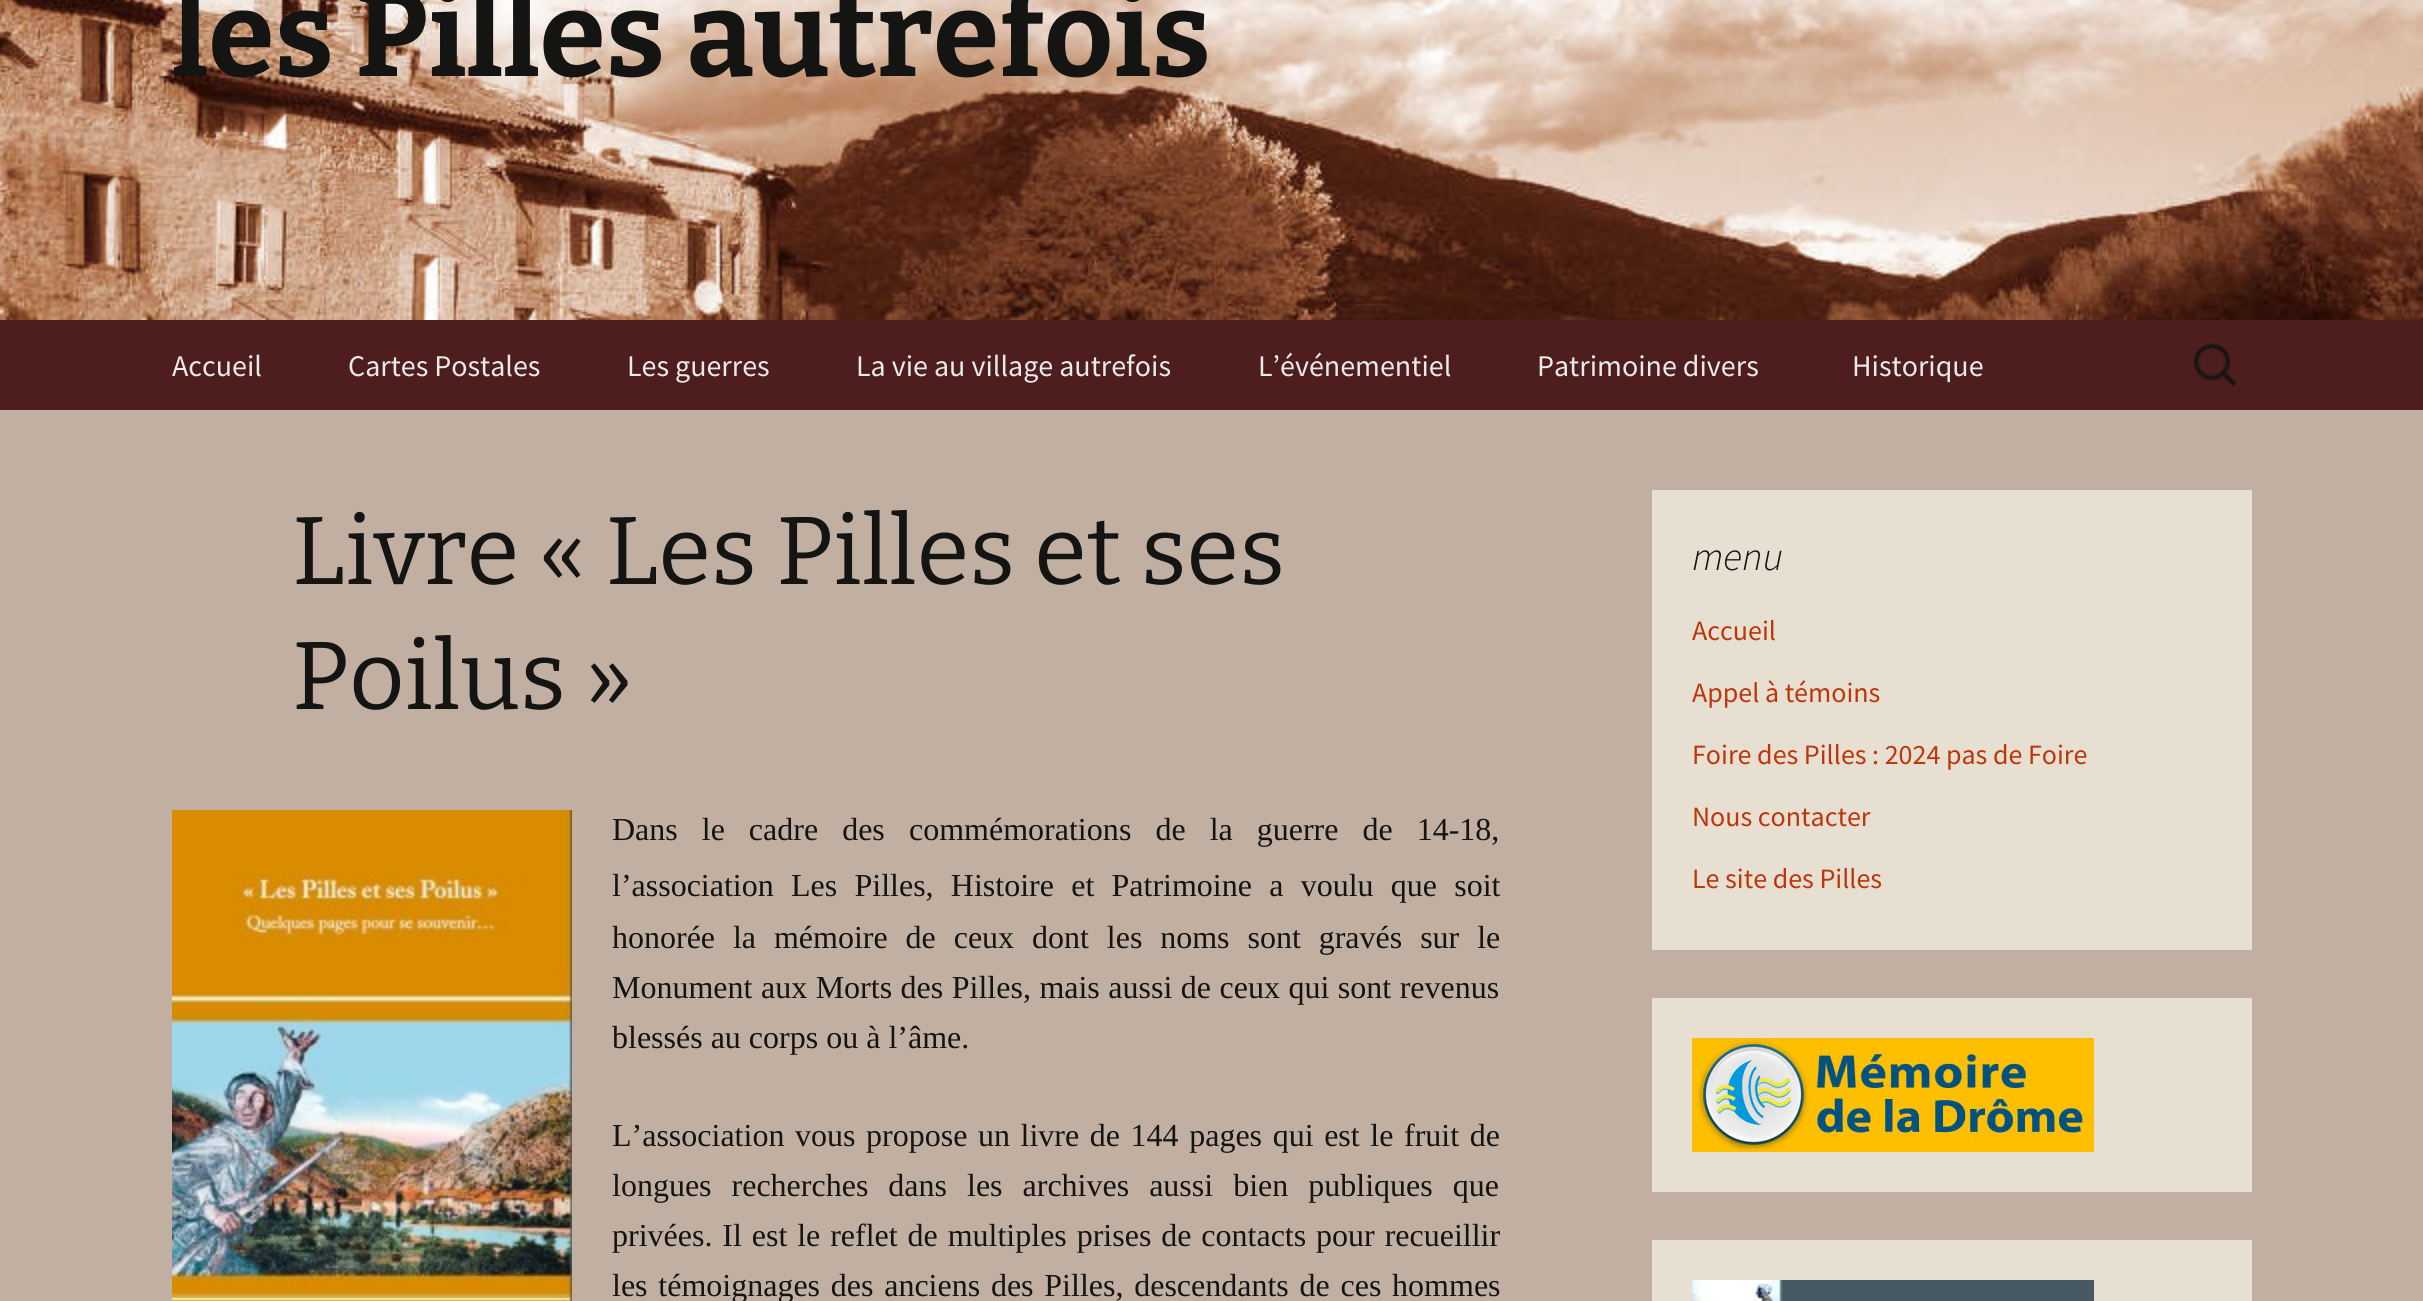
#include <cairo.h>
#include <math.h>
#include <stddef.h>


static void rgb(cairo_t *cr, int r, int g, int b)
{
	cairo_set_source_rgb(cr, r / 255.0, g / 255.0, b / 255.0);
}

static void face(cairo_t *cr, const char *family, double size, int italic, int bold)
{
	cairo_select_font_face(cr, family, italic ? CAIRO_FONT_SLANT_ITALIC : CAIRO_FONT_SLANT_NORMAL,
		bold ? CAIRO_FONT_WEIGHT_BOLD : CAIRO_FONT_WEIGHT_NORMAL);
	cairo_set_font_size(cr, size);
}

static void label(cairo_t *cr, double x, double y, const char *s)
{
	cairo_move_to(cr, x, y);
	cairo_show_text(cr, s);
}

static void tracked(cairo_t *cr, double x, double y, const char *s, double letter, double word)
{
	cairo_move_to(cr, x, y);
	while (*s) {
		char ch[5] = {0};
		int n = 0;
		do ch[n++] = *s++; while ((*s & 0xC0) == 0x80);
		cairo_show_text(cr, ch);
		cairo_rel_move_to(cr, letter + word * (*ch == ' '), 0);
	}
}

static void rect(cairo_t *cr, double x, double y, double w, double h)
{
	cairo_rectangle(cr, x, y, w, h);
	cairo_fill(cr);
}

static void image(cairo_t *cr, const char *path, double x, double y, double w, double h)
{
	cairo_surface_t *image = cairo_image_surface_create_from_png(path);
	cairo_save(cr);
	cairo_set_source_surface(cr, image, x, y);
	cairo_rectangle(cr, x, y, w, h);
	cairo_fill(cr);
	cairo_restore(cr);
	cairo_surface_destroy(image);
}

static void draw(cairo_t *cr) {
	rgb(cr, 193, 175, 162);
	cairo_paint(cr);
	image(cr, "image0.png", 0, 0, 2423, 320);
	face(cr, "Bitter Thin", 120, 0, 0);
	rgb(cr, 20, 20, 18);
	label(cr, 172, 76, "les Pilles autrefois");
	rgb(cr, 78, 30, 30);
	rect(cr, 0, 320, 2423, 90);
	face(cr, "Source Sans Pro", 30, 0, 0);
	rgb(cr, 234, 234, 234);
	label(cr, 172, 376, "Accueil");
	label(cr, 348, 376, "Cartes Postales");
	label(cr, 627, 376, "Les guerres");
	label(cr, 856, 376, "La vie au village autrefois");
	label(cr, 1258, 376, "L’événementiel");
	label(cr, 1537, 376, "Patrimoine divers");
	label(cr, 1852, 376, "Historique");
	image(cr, "image1.png", 2194, 343, 43, 44);
	face(cr, "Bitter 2 Thin", 96, 0, 0);
	rgb(cr, 20, 20, 18);
	label(cr, 292, 584, "Livre « Les Pilles et ses");
	label(cr, 292, 709, "Poilus »");
	image(cr, "image2.png", 172, 810, 400, 491);
	face(cr, "Liberation Serif", 32, 0, 0);
	tracked(cr, 612, 840, "Dans le cadre des", 0, 16);
	label(cr, 909, 840, "commémoration");
	tracked(cr, 1119, 840, "s de la guerre de 14-18,", 0, 16);
	label(cr, 612, 896, "l’association");
	tracked(cr, 791, 896, "Les Pilles, Histoire et Patrimoine a voulu que soit", 0, 9.25);
	tracked(cr, 612, 948, "honorée la mémoire de ceux dont les noms sont gravés sur le", 0, 9.9);
	tracked(cr, 612, 998, "Monument aux Morts des Pilles, mais aussi de ceux qui sont revenus", 0, 0.5);
	label(cr, 612, 1048, "blessés au corps ou à l’âme.");
	tracked(cr, 612, 1146, "L’association vous propose un livre de 144 pages qui est le fruit de", 0, 2.6);
	tracked(cr, 612, 1196, "longues recherches dans les archives aussi bien publiques que", 0, 12);
	tracked(cr, 612, 1246, "privées. Il est le reflet de multiples prises de contacts pour recueillir", 0, 1.9);
	tracked(cr, 612, 1296, "les témoignages des anciens des Pilles, descendants de ces hommes", 0, 2.75);
	rgb(cr, 231, 224, 210);
	rect(cr, 1652, 490, 600, 460);
	face(cr, "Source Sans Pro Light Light", 40, 1, 0);
	rgb(cr, 20, 20, 18);
	label(cr, 1692, 570, "menu");
	face(cr, "Source Sans Pro", 28, 0, 0);
	rgb(cr, 188, 54, 10);
	label(cr, 1692, 640, "Accueil");
	label(cr, 1692, 702, "Appel à témoins");
	label(cr, 1692, 764, "Foire des Pilles : 2024 pas de Foire");
	label(cr, 1692, 826, "Nous contacter");
	label(cr, 1692, 888, "Le site des Pilles");
	rgb(cr, 231, 224, 210);
	rect(cr, 1652, 998, 600, 194);
	image(cr, "image3.png", 1692, 1038, 402, 114);
	rect(cr, 1652, 1240, 600, 61);
	image(cr, "image4.png", 1692, 1280, 402, 21);
}

int main(void) {
	cairo_surface_t *surface = cairo_image_surface_create(CAIRO_FORMAT_RGB24, 2423, 1301);
	cairo_t *cr = cairo_create(surface);
	cairo_font_options_t *options = cairo_font_options_create();
	cairo_font_options_set_hint_metrics(options, CAIRO_HINT_METRICS_OFF);
	cairo_font_options_set_hint_style(options, CAIRO_HINT_STYLE_NONE);
	cairo_set_font_options(cr, options);
	cairo_set_miter_limit(cr, 4);
	draw(cr);
	cairo_surface_write_to_png(surface, "render.png");
	cairo_font_options_destroy(options);
	cairo_destroy(cr);
	cairo_surface_destroy(surface);
	return 0;
}
